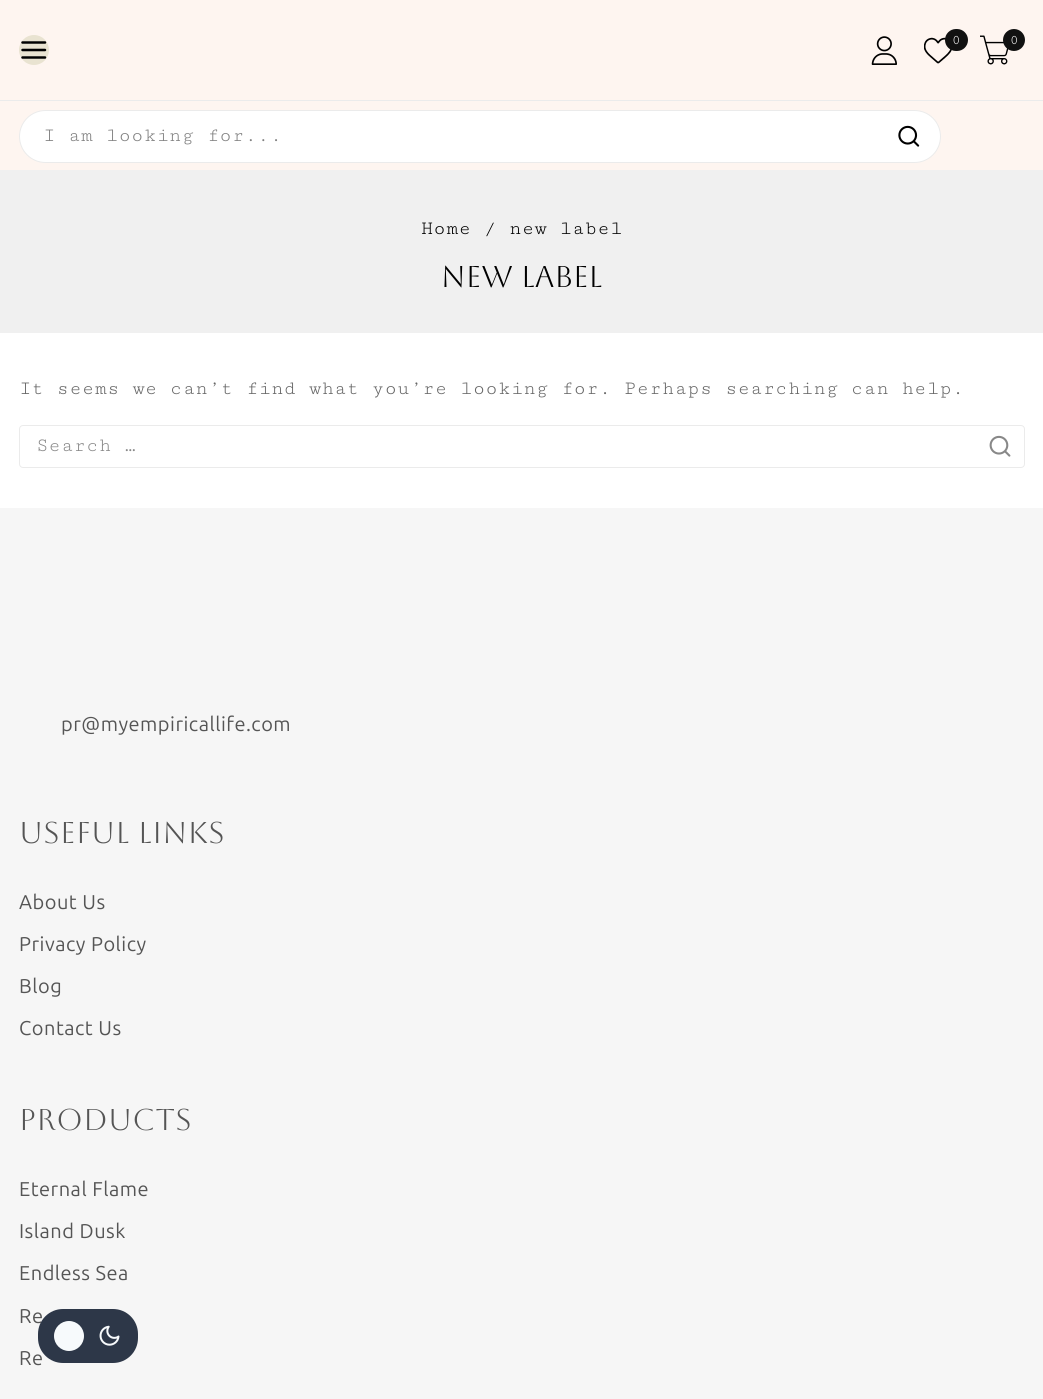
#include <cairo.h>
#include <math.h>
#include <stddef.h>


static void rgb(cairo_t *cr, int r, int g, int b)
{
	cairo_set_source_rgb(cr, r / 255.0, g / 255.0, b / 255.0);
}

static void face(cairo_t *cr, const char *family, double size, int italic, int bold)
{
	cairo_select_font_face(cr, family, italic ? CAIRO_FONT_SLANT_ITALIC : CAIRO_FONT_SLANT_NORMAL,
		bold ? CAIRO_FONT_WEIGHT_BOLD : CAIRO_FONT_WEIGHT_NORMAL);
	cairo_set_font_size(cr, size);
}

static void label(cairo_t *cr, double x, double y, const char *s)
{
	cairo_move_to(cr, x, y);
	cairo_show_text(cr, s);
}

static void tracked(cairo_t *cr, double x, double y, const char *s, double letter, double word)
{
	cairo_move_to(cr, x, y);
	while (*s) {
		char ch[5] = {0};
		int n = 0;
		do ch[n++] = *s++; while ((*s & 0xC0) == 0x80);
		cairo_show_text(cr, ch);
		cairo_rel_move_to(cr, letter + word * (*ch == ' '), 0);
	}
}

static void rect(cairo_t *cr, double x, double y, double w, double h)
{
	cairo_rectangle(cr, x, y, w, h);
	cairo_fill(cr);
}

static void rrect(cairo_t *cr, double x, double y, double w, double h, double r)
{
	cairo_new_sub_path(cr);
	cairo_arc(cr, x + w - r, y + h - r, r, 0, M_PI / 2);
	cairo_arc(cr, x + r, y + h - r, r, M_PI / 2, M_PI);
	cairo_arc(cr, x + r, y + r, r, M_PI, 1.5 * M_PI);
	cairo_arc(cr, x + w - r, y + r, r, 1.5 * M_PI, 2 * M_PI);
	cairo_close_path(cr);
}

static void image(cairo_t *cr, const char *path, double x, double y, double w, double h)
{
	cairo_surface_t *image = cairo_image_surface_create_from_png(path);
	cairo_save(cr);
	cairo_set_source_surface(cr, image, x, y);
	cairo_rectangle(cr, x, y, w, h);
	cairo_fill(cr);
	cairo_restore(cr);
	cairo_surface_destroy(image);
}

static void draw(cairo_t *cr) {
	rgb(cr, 255, 255, 255);
	cairo_paint(cr);
	rgb(cr, 254, 245, 240);
	rect(cr, 0, 0, 1043, 170);
	rgb(cr, 235, 235, 235);
	rect(cr, 0, 100, 1043, 1);
	rgb(cr, 233, 227, 209);
	cairo_arc(cr, 34, 50, 15, 0, 2 * M_PI);
	cairo_fill(cr);
	image(cr, "image0.png", 21, 41, 26, 18);
	image(cr, "image1.png", 871, 36, 26, 29);
	image(cr, "image2.png", 924, 37, 28, 27);
	rgb(cr, 17, 17, 17);
	rrect(cr, 945, 29, 23, 22, 11);
	cairo_fill(cr);
	face(cr, "Cutive Mono", 14, 0, 0);
	rgb(cr, 255, 255, 255);
	label(cr, 952, 44, "0");
	image(cr, "image3.png", 980, 35, 29, 30);
	rgb(cr, 17, 17, 17);
	cairo_arc(cr, 1014, 40, 11, 0, 2 * M_PI);
	cairo_fill(cr);
	rgb(cr, 255, 255, 255);
	label(cr, 1010, 44, "0");
	rrect(cr, 19.5, 110.5, 921, 52, 26);
	cairo_fill_preserve(cr);
	rgb(cr, 235, 235, 235);
	cairo_set_line_width(cr, 1);
	cairo_stroke(cr);
	face(cr, "Cutive Mono", 20, 0, 0);
	rgb(cr, 128, 128, 128);
	tracked(cr, 43, 141, "I am looking for...", 0.5, 0);
	image(cr, "image4.png", 898, 125, 22, 22);
	rgb(cr, 240, 240, 240);
	rect(cr, 0, 170, 1043, 163);
	rgb(cr, 0, 0, 0);
	tracked(cr, 421, 234, "Home / new label", 0.5, 0);
	face(cr, "Aboreto", 30, 0, 0);
	label(cr, 441, 287, "new label");
	face(cr, "Cutive Mono", 20, 0, 0);
	rgb(cr, 102, 102, 102);
	tracked(cr, 19, 394, "It seems we can’t find what you’re looking for. Perhaps searching can help.", 0.5, 0);
	rrect(cr, 19.5, 425.5, 1005, 42, 3.5);
	rgb(cr, 235, 235, 235);
	cairo_stroke(cr);
	rgb(cr, 136, 136, 136);
	tracked(cr, 36, 451, "Search …", 0.5, 0);
	image(cr, "image5.png", 989, 435, 22, 22);
	rgb(cr, 246, 246, 246);
	rect(cr, 0, 508, 1043, 891);
	face(cr, "Ubuntu", 20, 0, 0);
	rgb(cr, 85, 85, 85);
	tracked(cr, 61, 731, "pr@myempiricallife.com", 0.5, 0);
	face(cr, "Aboreto", 30, 0, 0);
	tracked(cr, 19, 843, "Useful Links", 0.4, 0);
	face(cr, "Ubuntu", 20, 0, 0);
	tracked(cr, 19, 909, "About Us", 0.5, 0);
	tracked(cr, 19, 951, "Privacy Policy", 0.5, 0);
	tracked(cr, 19, 993, "Blog", 0.5, 0);
	tracked(cr, 19, 1035, "Contact Us", 0.5, 0);
	face(cr, "Aboreto", 30, 0, 0);
	tracked(cr, 19, 1130, "Products", 0.4, 0);
	face(cr, "Ubuntu", 20, 0, 0);
	tracked(cr, 19, 1196, "Eternal Flame", 0.5, 0);
	tracked(cr, 19, 1238, "Island Dusk", 0.5, 0);
	tracked(cr, 19, 1280, "Endless Sea", 0.5, 0);
	tracked(cr, 19, 1323, "Re", 0.5, 0);
	tracked(cr, 19, 1365, "Re", 0.5, 0);
	rgb(cr, 45, 55, 72);
	rrect(cr, 38, 1309, 100, 54, 25);
	cairo_fill(cr);
	rgb(cr, 247, 250, 252);
	cairo_arc(cr, 69, 1336, 15, 0, 2 * M_PI);
	cairo_fill(cr);
	image(cr, "image6.png", 99, 1325, 21, 21);
}

int main(void) {
	cairo_surface_t *surface = cairo_image_surface_create(CAIRO_FORMAT_RGB24, 1043, 1399);
	cairo_t *cr = cairo_create(surface);
	cairo_font_options_t *options = cairo_font_options_create();
	cairo_font_options_set_hint_metrics(options, CAIRO_HINT_METRICS_OFF);
	cairo_font_options_set_hint_style(options, CAIRO_HINT_STYLE_NONE);
	cairo_set_font_options(cr, options);
	cairo_set_miter_limit(cr, 4);
	draw(cr);
	cairo_surface_write_to_png(surface, "render.png");
	cairo_font_options_destroy(options);
	cairo_destroy(cr);
	cairo_surface_destroy(surface);
	return 0;
}
